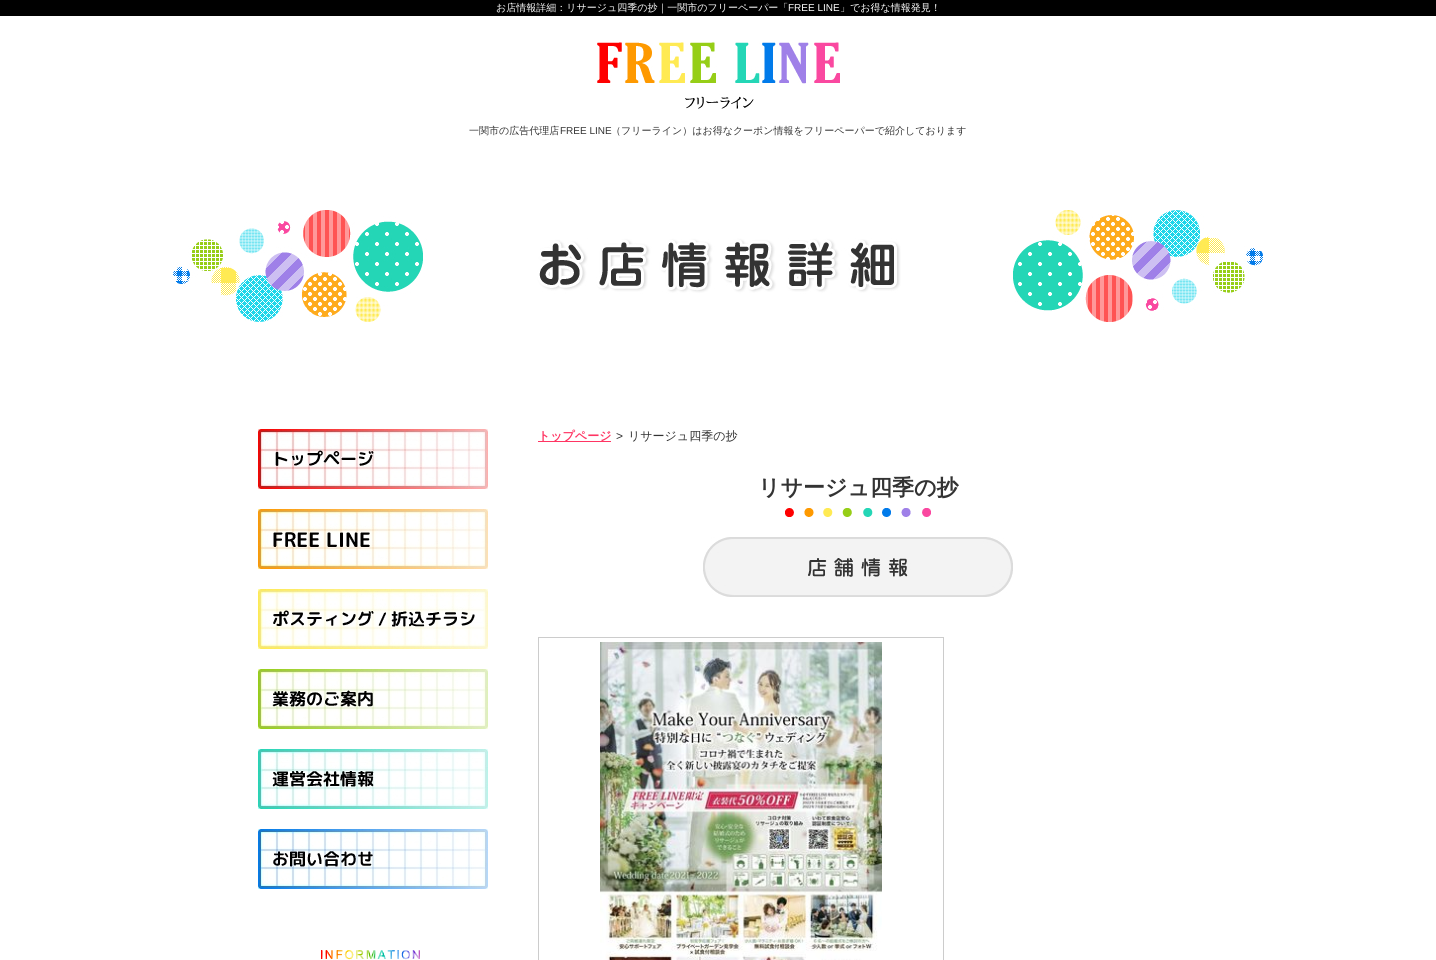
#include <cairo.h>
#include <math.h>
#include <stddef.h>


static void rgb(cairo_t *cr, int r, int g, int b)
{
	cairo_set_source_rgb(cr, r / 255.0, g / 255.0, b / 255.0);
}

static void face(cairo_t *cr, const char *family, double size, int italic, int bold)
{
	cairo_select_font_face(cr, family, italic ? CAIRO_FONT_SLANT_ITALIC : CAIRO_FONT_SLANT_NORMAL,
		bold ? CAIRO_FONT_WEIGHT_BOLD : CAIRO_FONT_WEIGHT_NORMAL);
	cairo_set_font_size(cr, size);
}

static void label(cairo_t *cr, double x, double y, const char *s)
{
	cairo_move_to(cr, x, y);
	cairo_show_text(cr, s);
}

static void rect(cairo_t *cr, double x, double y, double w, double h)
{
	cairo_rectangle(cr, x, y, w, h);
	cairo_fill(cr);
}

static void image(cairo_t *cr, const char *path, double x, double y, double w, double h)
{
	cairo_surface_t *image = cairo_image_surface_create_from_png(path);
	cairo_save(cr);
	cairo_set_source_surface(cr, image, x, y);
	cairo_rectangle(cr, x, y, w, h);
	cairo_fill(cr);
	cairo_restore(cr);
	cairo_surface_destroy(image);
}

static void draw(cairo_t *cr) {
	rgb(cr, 0, 0, 0);
	cairo_paint(cr);
	face(cr, "WenQuanYi Zen Hei Medium", 10, 0, 0);
	rgb(cr, 255, 255, 255);
	label(cr, 496, 11, "お店情報詳細：リサージュ四季の抄｜一関市のフリーペーパー「");
	face(cr, "Liberation Sans", 10, 0, 0);
	label(cr, 788, 11, "FREE LINE");
	face(cr, "WenQuanYi Zen Hei Medium", 10, 0, 0);
	label(cr, 840, 11, "」でお得な情報発見！");
	rect(cr, 0, 16, 1436, 944);
	image(cr, "image0.png", 597, 42, 243, 67);
	rgb(cr, 51, 51, 51);
	label(cr, 469, 134, "一関市の広告代理店");
	face(cr, "Liberation Sans", 10, 0, 0);
	label(cr, 560, 134, "FREE LINE");
	face(cr, "WenQuanYi Zen Hei Medium", 10, 0, 0);
	label(cr, 611, 134, "（フリーライン）はお得なクーポン情報をフリーペーパーで紹介しております");
	image(cr, "image1.png", 173, 210, 1090, 112);
	image(cr, "image2.png", 258, 429, 230, 60);
	image(cr, "image3.png", 258, 509, 230, 60);
	image(cr, "image4.png", 258, 589, 230, 60);
	image(cr, "image5.png", 258, 669, 230, 60);
	image(cr, "image6.png", 258, 749, 230, 60);
	image(cr, "image7.png", 258, 829, 230, 60);
	image(cr, "image8.png", 321, 950, 99, 10);
	rgb(cr, 255, 53, 99);
	rect(cr, 538, 441, 73, 1);
	face(cr, "WenQuanYi Zen Hei", 12, 0, 1);
	label(cr, 538, 440, "トップページ");
	face(cr, "Liberation Sans", 12, 0, 0);
	rgb(cr, 51, 51, 51);
	label(cr, 616, 440, ">");
	face(cr, "WenQuanYi Zen Hei Medium", 12, 0, 0);
	label(cr, 628, 440, "リサージュ四季の抄");
	image(cr, "image9.png", 785, 508, 146, 9);
	face(cr, "WenQuanYi Zen Hei", 22, 0, 1);
	label(cr, 758, 495, "リサージュ四季の抄");
	image(cr, "image10.png", 703, 537, 310, 60);
	cairo_rectangle(cr, 538.5, 637.5, 405, 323);
	rgb(cr, 204, 204, 204);
	cairo_set_line_width(cr, 1);
	cairo_stroke(cr);
	image(cr, "image11.png", 600, 642, 282, 318);
}

int main(void) {
	cairo_surface_t *surface = cairo_image_surface_create(CAIRO_FORMAT_RGB24, 1436, 960);
	cairo_t *cr = cairo_create(surface);
	cairo_font_options_t *options = cairo_font_options_create();
	cairo_font_options_set_hint_metrics(options, CAIRO_HINT_METRICS_OFF);
	cairo_font_options_set_hint_style(options, CAIRO_HINT_STYLE_NONE);
	cairo_set_font_options(cr, options);
	cairo_set_miter_limit(cr, 4);
	draw(cr);
	cairo_surface_write_to_png(surface, "render.png");
	cairo_font_options_destroy(options);
	cairo_destroy(cr);
	cairo_surface_destroy(surface);
	return 0;
}
